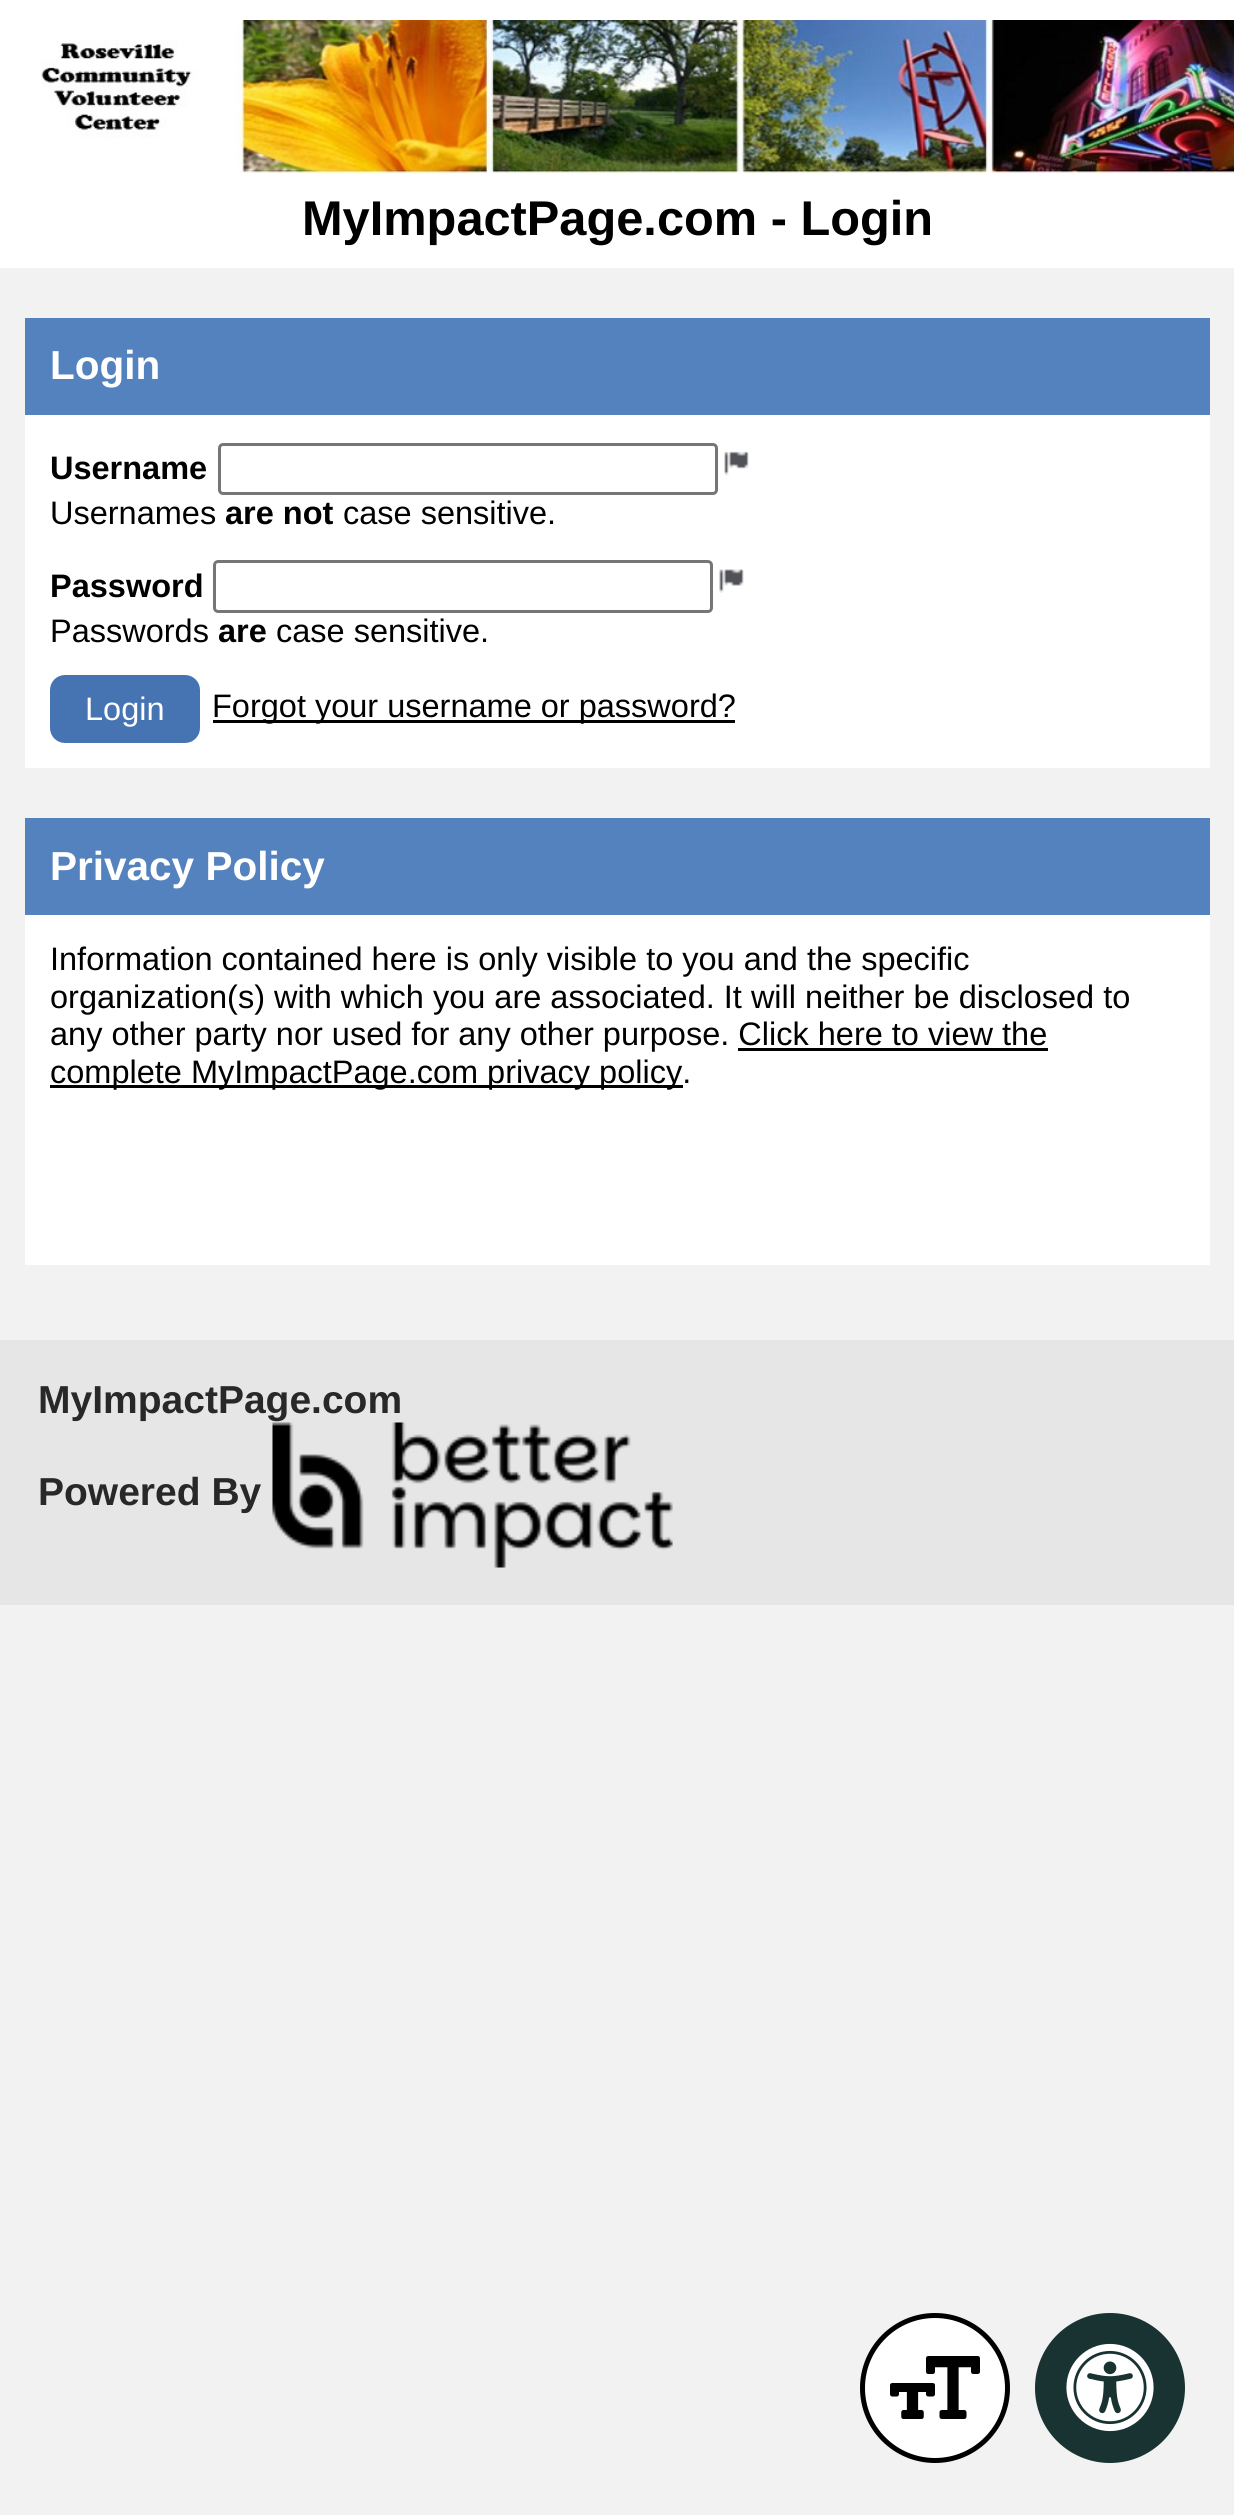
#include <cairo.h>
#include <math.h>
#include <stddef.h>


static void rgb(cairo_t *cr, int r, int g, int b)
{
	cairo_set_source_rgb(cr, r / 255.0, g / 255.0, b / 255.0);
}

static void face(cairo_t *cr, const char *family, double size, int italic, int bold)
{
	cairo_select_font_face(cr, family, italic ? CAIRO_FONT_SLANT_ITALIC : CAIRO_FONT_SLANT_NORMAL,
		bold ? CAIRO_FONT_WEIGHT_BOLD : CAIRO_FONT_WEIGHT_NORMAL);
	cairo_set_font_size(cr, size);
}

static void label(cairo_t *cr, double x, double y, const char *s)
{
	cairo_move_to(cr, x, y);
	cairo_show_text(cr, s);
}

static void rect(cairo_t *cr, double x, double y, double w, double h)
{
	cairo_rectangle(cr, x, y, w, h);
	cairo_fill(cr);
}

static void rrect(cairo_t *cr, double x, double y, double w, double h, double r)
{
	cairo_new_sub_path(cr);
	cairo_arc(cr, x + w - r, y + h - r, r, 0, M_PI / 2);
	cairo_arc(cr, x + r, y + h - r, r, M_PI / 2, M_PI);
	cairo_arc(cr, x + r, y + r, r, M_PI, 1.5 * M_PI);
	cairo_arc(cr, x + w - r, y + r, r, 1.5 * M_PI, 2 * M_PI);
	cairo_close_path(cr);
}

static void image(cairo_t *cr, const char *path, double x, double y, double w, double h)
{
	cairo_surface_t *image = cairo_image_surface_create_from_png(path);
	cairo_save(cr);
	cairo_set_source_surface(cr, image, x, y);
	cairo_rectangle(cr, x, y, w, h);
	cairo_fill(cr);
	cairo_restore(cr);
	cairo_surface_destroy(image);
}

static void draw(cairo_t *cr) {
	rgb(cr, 242, 242, 242);
	cairo_paint(cr);
	rgb(cr, 255, 255, 255);
	rect(cr, 0, 0, 1234, 268);
	image(cr, "image0.png", 41, 20, 1193, 153);
	face(cr, "Liberation Sans", 48.75, 0, 1);
	rgb(cr, 0, 0, 0);
	label(cr, 302, 235, "MyImpactPage.com - Login");
	rgb(cr, 84, 130, 190);
	rect(cr, 25, 318, 1185, 97);
	face(cr, "Liberation Sans", 40.5, 0, 1);
	rgb(cr, 255, 255, 255);
	label(cr, 50, 379, "Login");
	rect(cr, 25, 415, 1185, 353);
	face(cr, "Liberation Sans", 32.5, 0, 1);
	rgb(cr, 0, 0, 0);
	label(cr, 50, 479, "Username");
	rrect(cr, 219.5, 444.5, 497, 49, 3.5);
	rgb(cr, 118, 118, 118);
	cairo_set_line_width(cr, 3);
	cairo_stroke(cr);
	image(cr, "image1.png", 724, 451, 25, 25);
	face(cr, "Liberation Sans", 32.5, 0, 0);
	rgb(cr, 0, 0, 0);
	label(cr, 50, 524, "Usernames");
	face(cr, "Liberation Sans", 32.5, 0, 1);
	label(cr, 225, 524, "are not");
	face(cr, "Liberation Sans", 32.5, 0, 0);
	label(cr, 343, 524, "case sensitive.");
	face(cr, "Liberation Sans", 32.5, 0, 1);
	label(cr, 50, 597, "Password");
	rrect(cr, 214.5, 561.5, 497, 50, 3.5);
	rgb(cr, 118, 118, 118);
	cairo_stroke(cr);
	image(cr, "image2.png", 719, 569, 25, 24);
	face(cr, "Liberation Sans", 32.5, 0, 0);
	rgb(cr, 0, 0, 0);
	label(cr, 50, 642, "Passwords");
	face(cr, "Liberation Sans", 32.5, 0, 1);
	label(cr, 218, 642, "are");
	face(cr, "Liberation Sans", 32.5, 0, 0);
	label(cr, 276, 642, "case sensitive.");
	rgb(cr, 70, 116, 178);
	rrect(cr, 51.5, 676.5, 147, 65, 13.5);
	cairo_fill_preserve(cr);
	cairo_stroke(cr);
	rgb(cr, 255, 255, 255);
	label(cr, 85, 720, "Login");
	rgb(cr, 0, 0, 0);
	rect(cr, 213, 720, 522, 3);
	label(cr, 212, 717, "Forgot your username or password?");
	rgb(cr, 84, 130, 190);
	rect(cr, 25, 818, 1185, 97);
	face(cr, "Liberation Sans", 40.5, 0, 1);
	rgb(cr, 255, 255, 255);
	label(cr, 50, 880, "Privacy Policy");
	rect(cr, 25, 915, 1185, 350);
	face(cr, "Liberation Sans", 32.5, 0, 0);
	rgb(cr, 0, 0, 0);
	label(cr, 50, 970, "Information contained here is only visible to you and the specific");
	label(cr, 50, 1008, "organization(s) with which you are associated. It will neither be disclosed to");
	label(cr, 50, 1045, "any other party nor used for any other purpose. Click here to view the");
	rect(cr, 50, 1085, 633, 3);
	label(cr, 50, 1083, "complete MyImpactPage.com privacy policy.");
	rect(cr, 738, 1048, 310, 3);
	rgb(cr, 230, 230, 230);
	rect(cr, 0, 1340, 1234, 265);
	face(cr, "Liberation Sans", 39, 0, 1);
	rgb(cr, 40, 40, 40);
	label(cr, 38, 1413, "MyImpactPage.com");
	label(cr, 38, 1505, "Powered By");
	image(cr, "image3.png", 272, 1422, 401, 146);
	rgb(cr, 255, 255, 255);
	cairo_arc(cr, 935, 2388, 72.5, 0, 2 * M_PI);
	cairo_fill_preserve(cr);
	rgb(cr, 0, 0, 0);
	cairo_set_line_width(cr, 5);
	cairo_stroke(cr);
	image(cr, "image4.png", 890, 2356, 90, 63);
	rgb(cr, 24, 51, 49);
	cairo_arc(cr, 1110, 2388, 75, 0, 2 * M_PI);
	cairo_fill(cr);
	image(cr, "image5.png", 1066, 2343, 88, 89);
}

int main(void) {
	cairo_surface_t *surface = cairo_image_surface_create(CAIRO_FORMAT_RGB24, 1234, 2515);
	cairo_t *cr = cairo_create(surface);
	cairo_font_options_t *options = cairo_font_options_create();
	cairo_font_options_set_hint_metrics(options, CAIRO_HINT_METRICS_OFF);
	cairo_font_options_set_hint_style(options, CAIRO_HINT_STYLE_NONE);
	cairo_set_font_options(cr, options);
	cairo_set_miter_limit(cr, 4);
	draw(cr);
	cairo_surface_write_to_png(surface, "render.png");
	cairo_font_options_destroy(options);
	cairo_destroy(cr);
	cairo_surface_destroy(surface);
	return 0;
}
